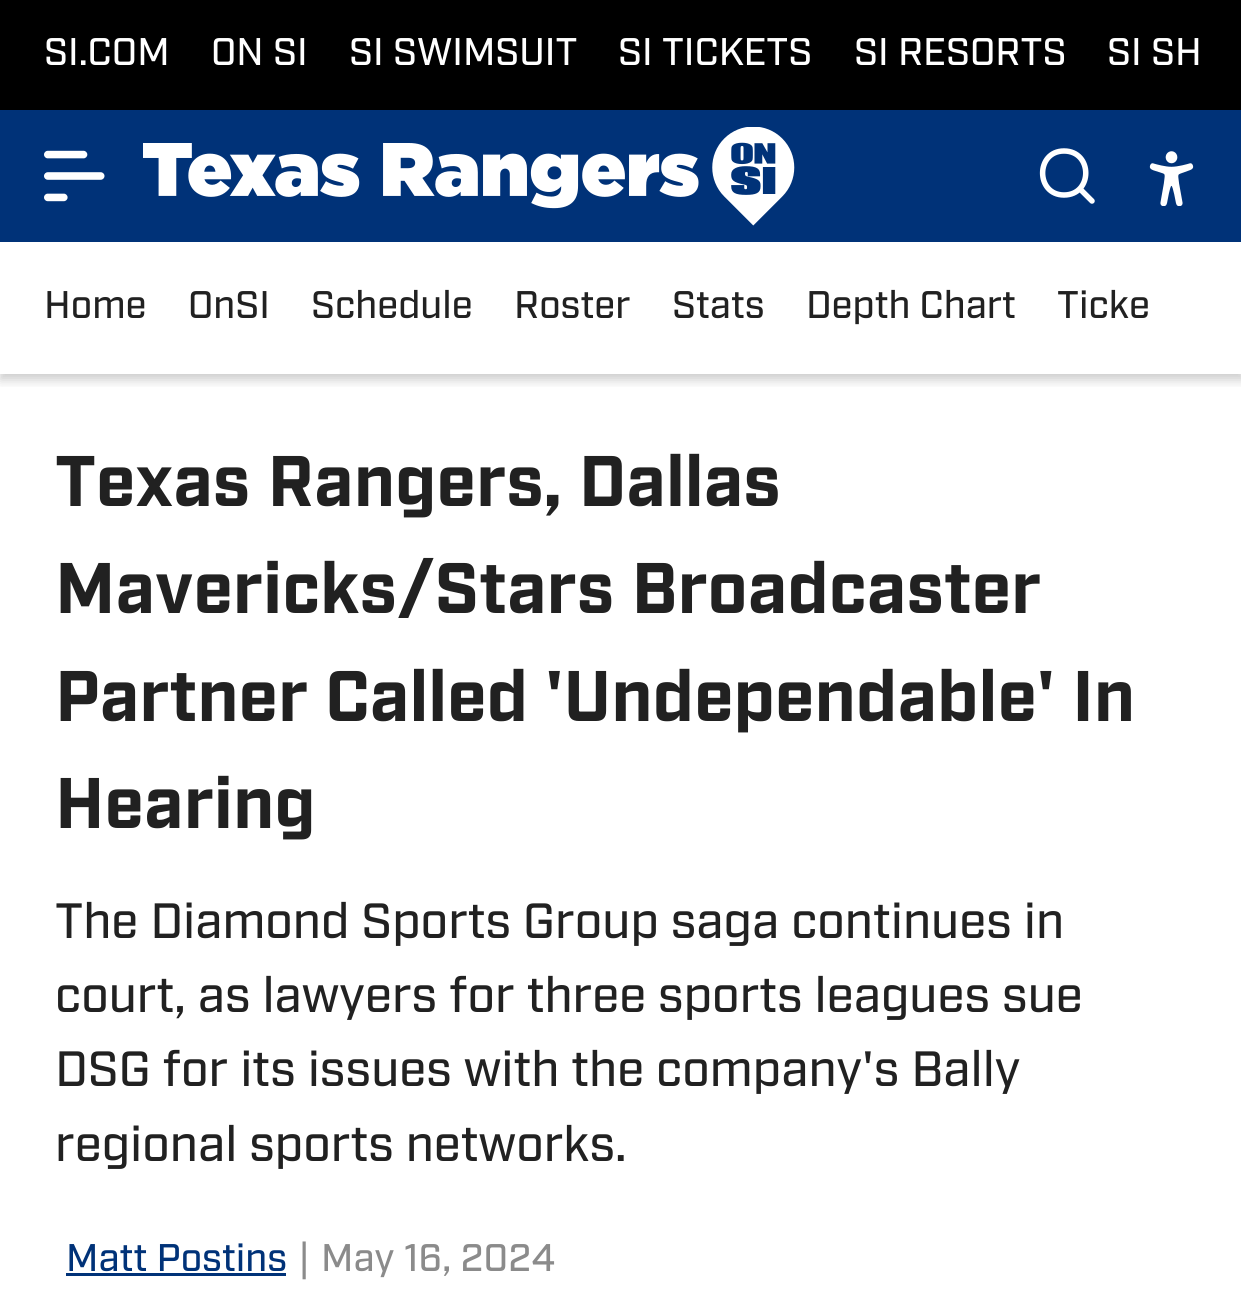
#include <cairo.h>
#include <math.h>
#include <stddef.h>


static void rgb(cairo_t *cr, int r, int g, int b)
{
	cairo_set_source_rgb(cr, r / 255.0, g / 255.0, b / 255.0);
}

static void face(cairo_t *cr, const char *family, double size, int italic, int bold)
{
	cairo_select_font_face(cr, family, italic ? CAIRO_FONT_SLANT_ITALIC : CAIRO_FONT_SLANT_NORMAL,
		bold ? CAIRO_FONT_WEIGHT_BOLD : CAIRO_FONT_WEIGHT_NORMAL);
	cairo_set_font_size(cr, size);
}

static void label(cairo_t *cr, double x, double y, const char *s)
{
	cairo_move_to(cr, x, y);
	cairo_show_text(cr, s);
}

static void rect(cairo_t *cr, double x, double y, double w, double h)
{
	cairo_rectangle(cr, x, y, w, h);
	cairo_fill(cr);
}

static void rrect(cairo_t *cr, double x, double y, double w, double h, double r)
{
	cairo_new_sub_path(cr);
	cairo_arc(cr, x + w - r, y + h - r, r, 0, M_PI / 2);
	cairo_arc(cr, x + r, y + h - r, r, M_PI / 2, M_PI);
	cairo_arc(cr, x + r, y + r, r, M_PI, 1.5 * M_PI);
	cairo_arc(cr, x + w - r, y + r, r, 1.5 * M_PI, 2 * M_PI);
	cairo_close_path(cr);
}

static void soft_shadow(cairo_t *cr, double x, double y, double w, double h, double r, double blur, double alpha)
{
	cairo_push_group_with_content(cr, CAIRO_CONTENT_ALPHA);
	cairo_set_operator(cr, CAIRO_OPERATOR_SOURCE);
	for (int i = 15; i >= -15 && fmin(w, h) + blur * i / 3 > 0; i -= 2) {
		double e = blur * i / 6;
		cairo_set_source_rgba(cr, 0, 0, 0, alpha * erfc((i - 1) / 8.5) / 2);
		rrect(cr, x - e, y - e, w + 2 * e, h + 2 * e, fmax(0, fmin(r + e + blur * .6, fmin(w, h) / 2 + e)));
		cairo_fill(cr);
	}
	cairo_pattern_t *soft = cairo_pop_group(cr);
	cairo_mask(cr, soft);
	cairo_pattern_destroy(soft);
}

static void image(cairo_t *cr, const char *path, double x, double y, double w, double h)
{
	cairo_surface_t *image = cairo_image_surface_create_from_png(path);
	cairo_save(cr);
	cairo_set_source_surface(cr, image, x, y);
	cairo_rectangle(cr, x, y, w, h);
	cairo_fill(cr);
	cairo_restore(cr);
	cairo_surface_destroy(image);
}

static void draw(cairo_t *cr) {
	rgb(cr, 255, 255, 255);
	cairo_paint(cr);
	rgb(cr, 0, 0, 0);
	rect(cr, 0, 0, 1241, 110);
	face(cr, "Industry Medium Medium", 38.5, 0, 0);
	rgb(cr, 255, 255, 255);
	label(cr, 44, 65, "SI.COM");
	label(cr, 211, 65, "ON SI");
	label(cr, 349, 65, "SI SWIMSUIT");
	label(cr, 618, 65, "SI TICKETS");
	label(cr, 854, 65, "SI RESORTS");
	label(cr, 1107, 65, "SI SH");
	cairo_save(cr);
	cairo_rectangle(cr, 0, 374, 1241, 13);
	cairo_clip(cr);
	rgb(cr, 0, 0, 0);
	soft_shadow(cr, 0, 248, 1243, 132, 0, 5.5, 0.2);
	cairo_restore(cr);
	rgb(cr, 0, 50, 120);
	rect(cr, 0, 110, 1241, 132);
	image(cr, "image0.png", 44, 150, 61, 52);
	image(cr, "image1.png", 143, 127, 652, 99);
	cairo_new_path(cr);
	cairo_move_to(cr, 1064, 195);
	cairo_curve_to(cr, 1093, 195, 1093, 151, 1064, 151);
	cairo_curve_to(cr, 1035.5, 151, 1035.5, 195, 1064, 195);
	cairo_close_path(cr);
	cairo_move_to(cr, 1092, 201);
	cairo_line_to(cr, 1080, 189);
	rgb(cr, 255, 255, 255);
	cairo_set_line_width(cr, 5.5);
	cairo_set_line_cap(cr, CAIRO_LINE_CAP_ROUND);
	cairo_set_line_join(cr, CAIRO_LINE_JOIN_ROUND);
	cairo_stroke(cr);
	image(cr, "image2.png", 1149, 151, 45, 55);
	rgb(cr, 33, 33, 33);
	label(cr, 44, 318, "Home");
	label(cr, 188, 318, "OnSI");
	label(cr, 311, 318, "Schedule");
	label(cr, 514, 318, "Roster");
	label(cr, 672, 318, "Stats");
	label(cr, 806, 318, "Depth Chart");
	label(cr, 1057, 318, "Ticke");
	face(cr, "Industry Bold", 71.5, 0, 1);
	label(cr, 55, 506, "Texas Rangers, Dallas");
	label(cr, 55, 613, "Mavericks/Stars Broadcaster");
	label(cr, 55, 721, "Partner Called 'Undependable' In");
	label(cr, 55, 828, "Hearing");
	face(cr, "Industry Medium Medium", 49.5, 0, 0);
	label(cr, 55, 938, "The Diamond Sports Group saga continues in");
	label(cr, 55, 1012, "court, as lawyers for three sports leagues sue");
	label(cr, 55, 1086, "DSG for its issues with the company's Bally");
	label(cr, 55, 1161, "regional sports networks.");
	face(cr, "Industry Medium Medium", 38.5, 0, 0);
	rgb(cr, 0, 50, 120);
	label(cr, 66, 1271, "Matt Postins");
	rect(cr, 66, 1273, 220, 3);
	rgb(cr, 139, 139, 139);
	label(cr, 298, 1271, "|");
	label(cr, 321, 1271, "May 16, 2024");
}

int main(void) {
	cairo_surface_t *surface = cairo_image_surface_create(CAIRO_FORMAT_RGB24, 1241, 1308);
	cairo_t *cr = cairo_create(surface);
	cairo_font_options_t *options = cairo_font_options_create();
	cairo_font_options_set_hint_metrics(options, CAIRO_HINT_METRICS_OFF);
	cairo_font_options_set_hint_style(options, CAIRO_HINT_STYLE_NONE);
	cairo_set_font_options(cr, options);
	cairo_set_miter_limit(cr, 4);
	draw(cr);
	cairo_surface_write_to_png(surface, "render.png");
	cairo_font_options_destroy(options);
	cairo_destroy(cr);
	cairo_surface_destroy(surface);
	return 0;
}
